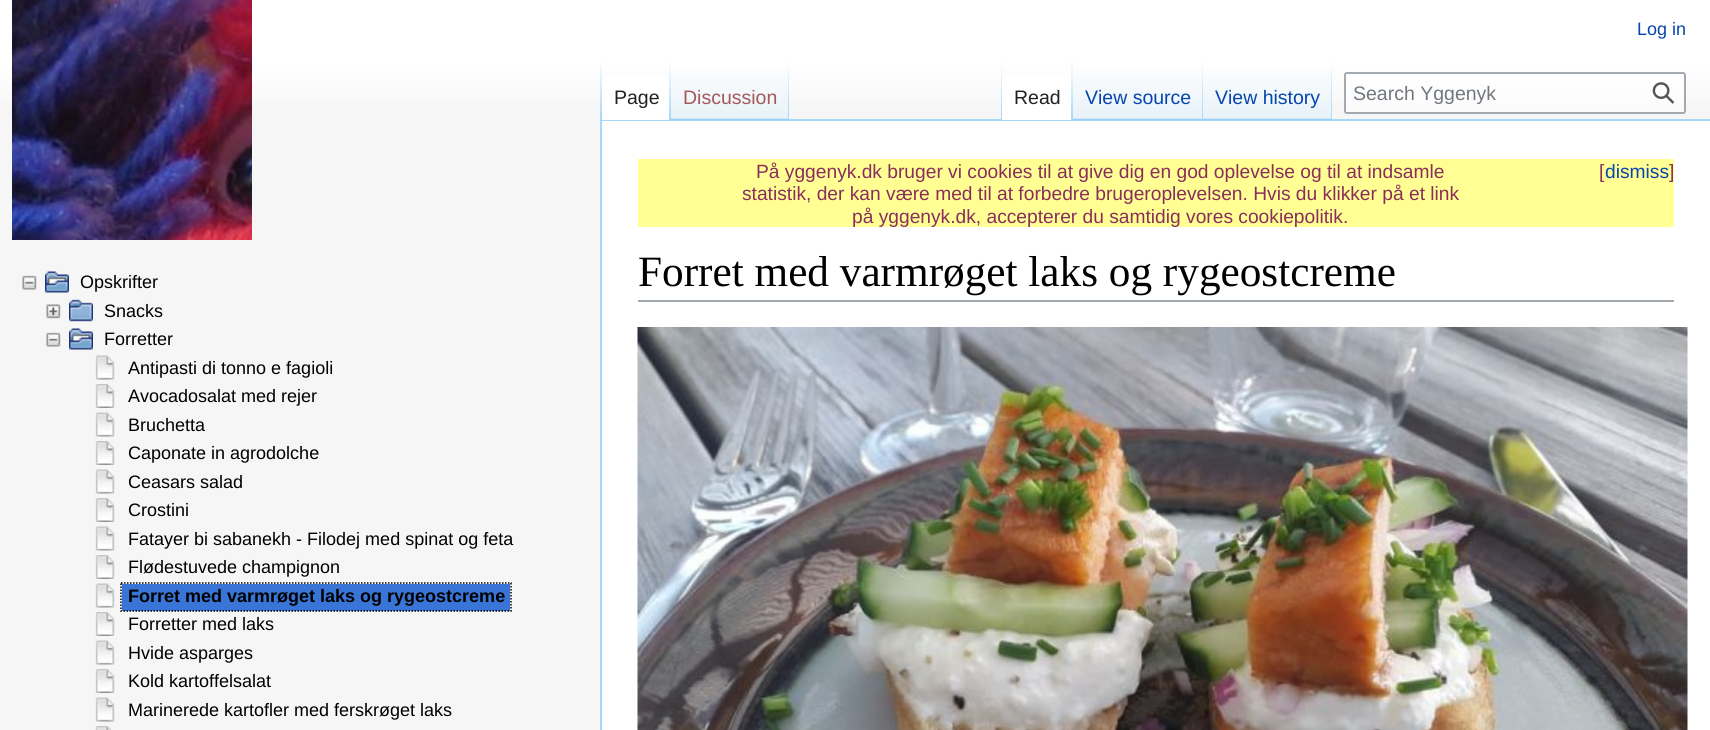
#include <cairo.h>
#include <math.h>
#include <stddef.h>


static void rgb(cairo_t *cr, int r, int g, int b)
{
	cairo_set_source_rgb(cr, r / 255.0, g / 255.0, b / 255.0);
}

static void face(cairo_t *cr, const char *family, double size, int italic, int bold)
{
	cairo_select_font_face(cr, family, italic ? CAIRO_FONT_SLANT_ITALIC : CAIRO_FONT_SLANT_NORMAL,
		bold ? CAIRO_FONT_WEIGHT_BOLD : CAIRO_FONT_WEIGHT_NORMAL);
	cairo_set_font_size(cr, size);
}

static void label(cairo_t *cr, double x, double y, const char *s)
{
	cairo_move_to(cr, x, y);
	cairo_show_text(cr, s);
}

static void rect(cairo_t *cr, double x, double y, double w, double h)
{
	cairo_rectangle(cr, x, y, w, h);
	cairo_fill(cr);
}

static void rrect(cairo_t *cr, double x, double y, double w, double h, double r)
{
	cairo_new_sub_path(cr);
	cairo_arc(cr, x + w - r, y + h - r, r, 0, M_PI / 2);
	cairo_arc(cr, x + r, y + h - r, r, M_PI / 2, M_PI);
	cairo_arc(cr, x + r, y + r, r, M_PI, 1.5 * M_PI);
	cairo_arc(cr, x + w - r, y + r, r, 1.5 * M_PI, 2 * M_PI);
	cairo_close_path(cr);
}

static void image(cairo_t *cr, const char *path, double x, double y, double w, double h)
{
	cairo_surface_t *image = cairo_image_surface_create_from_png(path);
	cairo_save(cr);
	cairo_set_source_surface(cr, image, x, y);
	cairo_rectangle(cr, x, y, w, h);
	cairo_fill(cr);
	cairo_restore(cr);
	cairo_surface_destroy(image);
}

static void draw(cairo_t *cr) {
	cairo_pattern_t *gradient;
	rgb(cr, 246, 246, 246);
	cairo_paint(cr);
	gradient = cairo_pattern_create_linear(855, 0, 855, 120);
	cairo_pattern_add_color_stop_rgba(gradient, 0.5, 1, 1, 1, 1);
	cairo_pattern_add_color_stop_rgba(gradient, 1, 0.965, 0.965, 0.965, 1);
	cairo_set_source(cr, gradient);
	cairo_pattern_destroy(gradient);
	rect(cr, 0, 0, 1710, 103);
	face(cr, "Liberation Sans", 18, 0, 0);
	rgb(cr, 6, 69, 173);
	label(cr, 1637, 35, "Log in");
	rgb(cr, 167, 215, 249);
	rect(cr, 600, 119, 1110, 2);
	rect(cr, 600, 119, 2, 611);
	gradient = cairo_pattern_create_linear(601, 60, 601, 120);
	cairo_pattern_add_color_stop_rgba(gradient, 0, 0.655, 0.843, 0.976, 0);
	cairo_pattern_add_color_stop_rgba(gradient, 1, 0.655, 0.843, 0.976, 1);
	cairo_set_source(cr, gradient);
	cairo_pattern_destroy(gradient);
	rect(cr, 600, 60, 2, 60);
	rgb(cr, 255, 255, 255);
	rect(cr, 602, 77, 67, 43);
	gradient = cairo_pattern_create_linear(670, 60, 670, 120);
	cairo_pattern_add_color_stop_rgba(gradient, 0, 1, 1, 1, 1);
	cairo_pattern_add_color_stop_rgba(gradient, 1, 0.655, 0.843, 0.976, 1);
	cairo_set_source(cr, gradient);
	cairo_pattern_destroy(gradient);
	rect(cr, 669, 60, 2, 60);
	face(cr, "Liberation Sans", 19.5, 0, 0);
	rgb(cr, 32, 33, 34);
	label(cr, 614, 104, "Page");
	gradient = cairo_pattern_create_linear(730, 120, 730, 60);
	cairo_pattern_add_color_stop_rgba(gradient, 0, 0.467, 0.757, 0.965, 1);
	cairo_pattern_add_color_stop_rgba(gradient, 0.03, 0.91, 0.949, 0.973, 1);
	cairo_pattern_add_color_stop_rgba(gradient, 1, 1, 1, 1, 1);
	cairo_set_source(cr, gradient);
	cairo_pattern_destroy(gradient);
	rect(cr, 671, 69, 118, 51);
	gradient = cairo_pattern_create_linear(788, 60, 788, 120);
	cairo_pattern_add_color_stop_rgba(gradient, 0, 0.655, 0.843, 0.976, 0);
	cairo_pattern_add_color_stop_rgba(gradient, 1, 0.655, 0.843, 0.976, 1);
	cairo_set_source(cr, gradient);
	cairo_pattern_destroy(gradient);
	rect(cr, 788, 60, 1, 60);
	rgb(cr, 165, 88, 88);
	label(cr, 683, 104, "Discussion");
	gradient = cairo_pattern_create_linear(1001, 60, 1001, 120);
	cairo_pattern_add_color_stop_rgba(gradient, 0, 0.655, 0.843, 0.976, 0);
	cairo_pattern_add_color_stop_rgba(gradient, 1, 0.655, 0.843, 0.976, 1);
	cairo_set_source(cr, gradient);
	cairo_pattern_destroy(gradient);
	rect(cr, 1001, 60, 1, 60);
	rgb(cr, 255, 255, 255);
	rect(cr, 1002, 77, 69, 43);
	gradient = cairo_pattern_create_linear(1072, 60, 1072, 120);
	cairo_pattern_add_color_stop_rgba(gradient, 0, 1, 1, 1, 1);
	cairo_pattern_add_color_stop_rgba(gradient, 1, 0.655, 0.843, 0.976, 1);
	cairo_set_source(cr, gradient);
	cairo_pattern_destroy(gradient);
	rect(cr, 1071, 60, 2, 60);
	rgb(cr, 32, 33, 34);
	label(cr, 1014, 104, "Read");
	gradient = cairo_pattern_create_linear(1138, 120, 1138, 60);
	cairo_pattern_add_color_stop_rgba(gradient, 0, 0.467, 0.757, 0.965, 1);
	cairo_pattern_add_color_stop_rgba(gradient, 0.03, 0.91, 0.949, 0.973, 1);
	cairo_pattern_add_color_stop_rgba(gradient, 1, 1, 1, 1, 1);
	cairo_set_source(cr, gradient);
	cairo_pattern_destroy(gradient);
	rect(cr, 1073, 69, 130, 51);
	gradient = cairo_pattern_create_linear(1202, 60, 1202, 120);
	cairo_pattern_add_color_stop_rgba(gradient, 0, 0.655, 0.843, 0.976, 0);
	cairo_pattern_add_color_stop_rgba(gradient, 1, 0.655, 0.843, 0.976, 1);
	cairo_set_source(cr, gradient);
	cairo_pattern_destroy(gradient);
	rect(cr, 1202, 60, 1, 60);
	rgb(cr, 6, 69, 173);
	label(cr, 1085, 104, "View source");
	gradient = cairo_pattern_create_linear(1268, 120, 1268, 60);
	cairo_pattern_add_color_stop_rgba(gradient, 0, 0.467, 0.757, 0.965, 1);
	cairo_pattern_add_color_stop_rgba(gradient, 0.03, 0.91, 0.949, 0.973, 1);
	cairo_pattern_add_color_stop_rgba(gradient, 1, 1, 1, 1, 1);
	cairo_set_source(cr, gradient);
	cairo_pattern_destroy(gradient);
	rect(cr, 1203, 69, 129, 51);
	gradient = cairo_pattern_create_linear(1331, 60, 1331, 120);
	cairo_pattern_add_color_stop_rgba(gradient, 0, 0.655, 0.843, 0.976, 0);
	cairo_pattern_add_color_stop_rgba(gradient, 1, 0.655, 0.843, 0.976, 1);
	cairo_set_source(cr, gradient);
	cairo_pattern_destroy(gradient);
	rect(cr, 1331, 60, 1, 60);
	rgb(cr, 6, 69, 173);
	label(cr, 1215, 104, "View history");
	cairo_set_source_rgba(cr, 1, 1, 1, 0.5);
	rrect(cr, 1345, 73, 340, 40, 2);
	cairo_fill_preserve(cr);
	rgb(cr, 162, 169, 177);
	cairo_stroke(cr);
	rgb(cr, 114, 119, 125);
	label(cr, 1353, 100, "Search Yggenyk");
	image(cr, "image0.png", 1652, 82, 23, 22);
	image(cr, "image1.png", 12, 0, 240, 240);
	image(cr, "image2.png", 22, 275, 15, 15);
	image(cr, "image3.png", 45, 271, 24, 22);
	face(cr, "Liberation Sans", 18, 0, 0);
	rgb(cr, 0, 0, 0);
	label(cr, 80, 288, "Opskrifter");
	image(cr, "image4.png", 46, 304, 15, 15);
	image(cr, "image5.png", 69, 299, 24, 23);
	label(cr, 104, 317, "Snacks");
	image(cr, "image2.png", 46, 332, 15, 15);
	image(cr, "image3.png", 69, 328, 24, 22);
	label(cr, 104, 345, "Forretter");
	image(cr, "image6.png", 95, 355, 20, 25);
	label(cr, 128, 374, "Antipasti di tonno e fagioli");
	image(cr, "image7.png", 95, 384, 20, 24);
	label(cr, 128, 402, "Avocadosalat med rejer");
	image(cr, "image6.png", 95, 412, 20, 25);
	label(cr, 128, 431, "Bruchetta");
	image(cr, "image7.png", 95, 441, 20, 24);
	label(cr, 128, 459, "Caponate in agrodolche");
	image(cr, "image6.png", 95, 469, 20, 25);
	label(cr, 128, 488, "Ceasars salad");
	image(cr, "image7.png", 95, 498, 20, 24);
	label(cr, 128, 516, "Crostini");
	image(cr, "image6.png", 95, 526, 20, 25);
	label(cr, 128, 545, "Fatayer bi sabanekh - Filodej med spinat og feta");
	image(cr, "image7.png", 95, 555, 20, 24);
	label(cr, 128, 573, "Flødestuvede champignon");
	image(cr, "image6.png", 95, 583, 20, 25);
	rgb(cr, 56, 117, 215);
	rect(cr, 122, 584, 388, 27);
	cairo_new_path(cr);
	cairo_move_to(cr, 121, 583);
	cairo_line_to(cr, 511, 583);
	cairo_line_to(cr, 511, 611);
	cairo_line_to(cr, 121, 611);
	cairo_close_path(cr);
	rgb(cr, 0, 0, 0);
	cairo_set_line_width(cr, 1.5);
	cairo_set_dash(cr, (double[]){1.5, 1.5}, 2, 0);
	cairo_stroke(cr);
	face(cr, "Liberation Sans", 18, 0, 1);
	label(cr, 128, 602, "Forret med varmrøget laks og rygeostcreme");
	image(cr, "image7.png", 95, 612, 20, 24);
	face(cr, "Liberation Sans", 18, 0, 0);
	label(cr, 128, 630, "Forretter med laks");
	image(cr, "image6.png", 95, 640, 20, 25);
	label(cr, 128, 659, "Hvide asparges");
	image(cr, "image7.png", 95, 669, 20, 24);
	label(cr, 128, 687, "Kold kartoffelsalat");
	image(cr, "image6.png", 95, 697, 20, 25);
	label(cr, 128, 716, "Marinerede kartofler med ferskrøget laks");
	image(cr, "image8.png", 95, 726, 17, 4);
	rgb(cr, 255, 255, 255);
	rect(cr, 602, 121, 1108, 609);
	rgb(cr, 255, 255, 148);
	rect(cr, 638, 159, 1036, 68);
	face(cr, "Liberation Sans", 19.2, 0, 0);
	rgb(cr, 138, 46, 92);
	label(cr, 756, 178, "På yggenyk.dk bruger vi cookies til at give dig en god oplevelse og til at indsamle");
	label(cr, 742, 200, "statistik, der kan være med til at forbedre brugeroplevelsen. Hvis du klikker på et link");
	label(cr, 852, 223, "på yggenyk.dk, accepterer du samtidig vores cookiepolitik.");
	label(cr, 1599, 178, "[");
	rgb(cr, 6, 69, 173);
	label(cr, 1605, 178, "dismiss");
	rgb(cr, 138, 46, 92);
	label(cr, 1669, 178, "]");
	rgb(cr, 162, 169, 177);
	rect(cr, 638, 300, 1036, 2);
	face(cr, "Liberation Serif", 43.25, 0, 0);
	rgb(cr, 0, 0, 0);
	label(cr, 638, 286, "Forret med varmrøget laks og rygeostcreme");
	image(cr, "image9.png", 637, 327, 1051, 403);
}

int main(void) {
	cairo_surface_t *surface = cairo_image_surface_create(CAIRO_FORMAT_RGB24, 1710, 730);
	cairo_t *cr = cairo_create(surface);
	cairo_font_options_t *options = cairo_font_options_create();
	cairo_font_options_set_hint_metrics(options, CAIRO_HINT_METRICS_OFF);
	cairo_font_options_set_hint_style(options, CAIRO_HINT_STYLE_NONE);
	cairo_set_font_options(cr, options);
	cairo_set_miter_limit(cr, 4);
	draw(cr);
	cairo_surface_write_to_png(surface, "render.png");
	cairo_font_options_destroy(options);
	cairo_destroy(cr);
	cairo_surface_destroy(surface);
	return 0;
}
